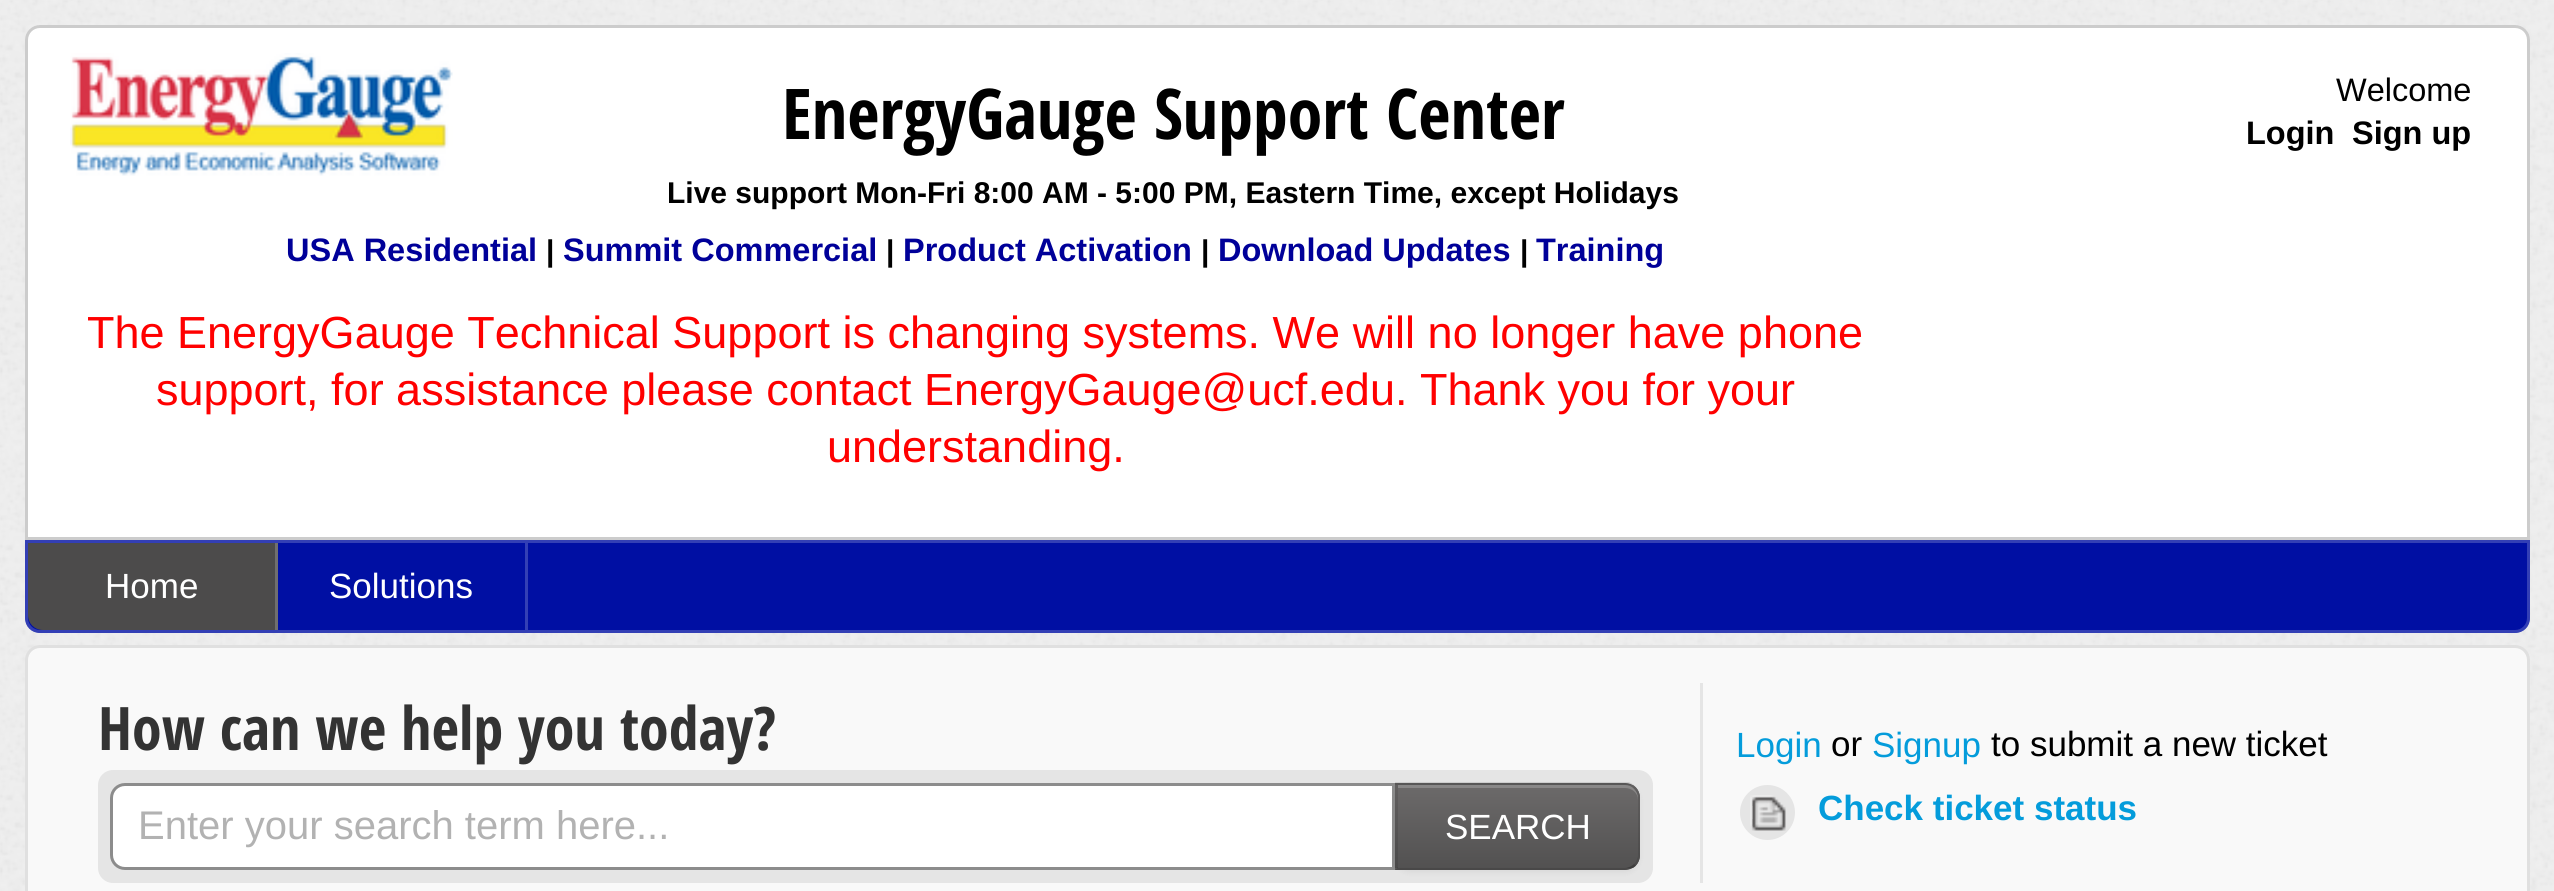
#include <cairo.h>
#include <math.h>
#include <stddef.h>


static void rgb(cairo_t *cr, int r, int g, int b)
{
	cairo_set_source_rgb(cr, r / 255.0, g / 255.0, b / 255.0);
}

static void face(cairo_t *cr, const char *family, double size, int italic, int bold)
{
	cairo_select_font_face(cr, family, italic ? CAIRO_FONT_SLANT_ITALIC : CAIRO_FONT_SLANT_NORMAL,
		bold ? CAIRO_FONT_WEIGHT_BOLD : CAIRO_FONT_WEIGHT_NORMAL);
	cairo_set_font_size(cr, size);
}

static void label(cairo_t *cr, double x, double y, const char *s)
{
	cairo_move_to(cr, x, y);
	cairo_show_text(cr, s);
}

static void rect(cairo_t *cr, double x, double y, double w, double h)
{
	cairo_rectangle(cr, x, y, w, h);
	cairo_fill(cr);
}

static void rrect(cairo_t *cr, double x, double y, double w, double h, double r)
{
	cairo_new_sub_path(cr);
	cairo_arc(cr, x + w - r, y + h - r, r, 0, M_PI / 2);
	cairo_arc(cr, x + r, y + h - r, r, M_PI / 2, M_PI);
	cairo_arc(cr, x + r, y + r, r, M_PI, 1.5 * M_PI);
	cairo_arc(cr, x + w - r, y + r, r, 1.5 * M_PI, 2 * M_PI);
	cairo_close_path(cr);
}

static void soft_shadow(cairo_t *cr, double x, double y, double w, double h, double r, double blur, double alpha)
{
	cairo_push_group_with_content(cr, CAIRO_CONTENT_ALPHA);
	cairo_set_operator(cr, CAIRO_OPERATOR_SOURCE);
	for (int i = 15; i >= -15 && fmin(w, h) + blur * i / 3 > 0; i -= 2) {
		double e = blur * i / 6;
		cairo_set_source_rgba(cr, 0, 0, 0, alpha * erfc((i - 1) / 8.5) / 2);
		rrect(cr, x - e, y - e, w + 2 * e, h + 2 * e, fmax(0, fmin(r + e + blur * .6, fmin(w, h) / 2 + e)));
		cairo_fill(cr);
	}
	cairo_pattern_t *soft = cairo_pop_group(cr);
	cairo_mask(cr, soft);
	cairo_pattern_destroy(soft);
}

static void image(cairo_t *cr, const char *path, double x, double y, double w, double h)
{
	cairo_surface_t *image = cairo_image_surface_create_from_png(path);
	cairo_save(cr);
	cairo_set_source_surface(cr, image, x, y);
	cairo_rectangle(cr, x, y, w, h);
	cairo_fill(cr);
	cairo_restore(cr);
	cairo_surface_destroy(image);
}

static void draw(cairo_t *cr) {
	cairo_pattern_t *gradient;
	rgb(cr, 239, 239, 239);
	cairo_paint(cr);
	image(cr, "image0.png", 0, 0, 2554, 891);
	rgb(cr, 255, 255, 255);
	cairo_new_path(cr);
	cairo_move_to(cr, 40, 25);
	cairo_line_to(cr, 2515, 25);
	cairo_curve_to(cr, 2523.5, 25, 2530, 31.5, 2530, 40);
	cairo_line_to(cr, 2530, 540);
	cairo_line_to(cr, 25, 540);
	cairo_line_to(cr, 25, 40);
	cairo_curve_to(cr, 25, 31.5, 31.5, 25, 40, 25);
	cairo_close_path(cr);
	cairo_fill(cr);
	cairo_new_path(cr);
	cairo_move_to(cr, 40, 26.5);
	cairo_line_to(cr, 2515, 26.5);
	cairo_curve_to(cr, 2522.5, 26.5, 2528.5, 32.5, 2528.5, 40);
	cairo_line_to(cr, 2528.5, 538.5);
	cairo_line_to(cr, 26.5, 538.5);
	cairo_line_to(cr, 26.5, 40);
	cairo_curve_to(cr, 26.5, 32.5, 32.5, 26.5, 40, 26.5);
	cairo_close_path(cr);
	cairo_set_source_rgba(cr, 0, 0, 0, 0.2);
	cairo_set_line_width(cr, 3);
	cairo_stroke(cr);
	image(cr, "image1.png", 70, 53, 383, 123);
	face(cr, "Open Sans Condensed", 70, 0, 1);
	rgb(cr, 0, 0, 0);
	label(cr, 782, 139, "EnergyGauge Support Center");
	face(cr, "Liberation Sans", 30, 0, 1);
	label(cr, 667, 203, "Live support Mon-Fri 8:00 AM - 5:00 PM, Eastern Time, except Holidays");
	face(cr, "Liberation Sans", 32.5, 0, 1);
	rgb(cr, 0, 0, 153);
	label(cr, 286, 261, "USA Residential");
	face(cr, "Liberation Sans", 30, 0, 1);
	rgb(cr, 0, 0, 0);
	label(cr, 546, 261, "|");
	face(cr, "Liberation Sans", 32.5, 0, 1);
	rgb(cr, 0, 0, 153);
	label(cr, 563, 261, "Summit Commercial");
	face(cr, "Liberation Sans", 30, 0, 1);
	rgb(cr, 0, 0, 0);
	label(cr, 886, 261, "|");
	face(cr, "Liberation Sans", 32.5, 0, 1);
	rgb(cr, 0, 0, 153);
	label(cr, 903, 261, "Product Activation");
	face(cr, "Liberation Sans", 30, 0, 1);
	rgb(cr, 0, 0, 0);
	label(cr, 1201, 261, "|");
	face(cr, "Liberation Sans", 32.5, 0, 1);
	rgb(cr, 0, 0, 153);
	label(cr, 1218, 261, "Download Updates");
	face(cr, "Liberation Sans", 30, 0, 1);
	rgb(cr, 0, 0, 0);
	label(cr, 1520, 261, "|");
	face(cr, "Liberation Sans", 32.5, 0, 1);
	rgb(cr, 0, 0, 153);
	label(cr, 1536, 261, "Training");
	face(cr, "Liberation Sans", 45, 0, 0);
	rgb(cr, 255, 0, 0);
	label(cr, 87, 348, "The EnergyGauge Technical Support is changing systems. We will no longer have phone");
	label(cr, 156, 405, "support, for assistance please contact EnergyGauge@ucf.edu. Thank you for your");
	label(cr, 827, 462, "understanding.");
	face(cr, "Liberation Sans", 32.5, 0, 0);
	rgb(cr, 0, 0, 0);
	label(cr, 2336, 101, "Welcome");
	face(cr, "Liberation Sans", 32.5, 0, 1);
	label(cr, 2246, 144, "Login");
	label(cr, 2352, 144, "Sign up");
	rgb(cr, 0, 15, 163);
	cairo_new_path(cr);
	cairo_move_to(cr, 25, 540);
	cairo_line_to(cr, 2530, 540);
	cairo_line_to(cr, 2530, 618);
	cairo_curve_to(cr, 2530, 626.5, 2523.5, 633, 2515, 633);
	cairo_line_to(cr, 40, 633);
	cairo_curve_to(cr, 31.5, 633, 25, 626.5, 25, 618);
	cairo_close_path(cr);
	cairo_fill(cr);
	cairo_new_path(cr);
	cairo_move_to(cr, 26.5, 541.5);
	cairo_line_to(cr, 2528.5, 541.5);
	cairo_line_to(cr, 2528.5, 618);
	cairo_curve_to(cr, 2528.5, 625.5, 2522.5, 631.5, 2515, 631.5);
	cairo_line_to(cr, 40, 631.5);
	cairo_curve_to(cr, 32.5, 631.5, 26.5, 625.5, 26.5, 618);
	cairo_close_path(cr);
	cairo_set_source_rgba(cr, 1, 1, 1, 0.2);
	cairo_stroke(cr);
	rgb(cr, 76, 75, 75);
	cairo_new_path(cr);
	cairo_move_to(cr, 28, 543);
	cairo_line_to(cr, 278, 543);
	cairo_line_to(cr, 278, 630);
	cairo_line_to(cr, 43, 630);
	cairo_curve_to(cr, 34.5, 630, 28, 623.5, 28, 615);
	cairo_close_path(cr);
	cairo_fill(cr);
	rgb(cr, 112, 111, 111);
	rect(cr, 275, 543, 3, 87);
	face(cr, "Liberation Sans", 35, 0, 0);
	rgb(cr, 255, 255, 255);
	label(cr, 105, 598, "Home");
	rgb(cr, 51, 63, 181);
	rect(cr, 525, 543, 3, 87);
	rgb(cr, 255, 255, 255);
	label(cr, 329, 598, "Solutions");
	rgb(cr, 249, 249, 249);
	rrect(cr, 26.5, 646.5, 2502, 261, 13.5);
	cairo_fill_preserve(cr);
	rgb(cr, 224, 224, 224);
	cairo_stroke(cr);
	rgb(cr, 229, 229, 229);
	rect(cr, 1700, 683, 3, 200);
	face(cr, "Open Sans Condensed", 60, 0, 1);
	rgb(cr, 51, 51, 51);
	label(cr, 98, 750, "How can we help you today?");
	rgb(cr, 229, 229, 229);
	rrect(cr, 98, 770, 1555, 113, 15);
	cairo_fill(cr);
	rgb(cr, 255, 255, 255);
	cairo_new_path(cr);
	cairo_move_to(cr, 125, 784.5);
	cairo_line_to(cr, 1393.5, 784.5);
	cairo_line_to(cr, 1393.5, 868.5);
	cairo_line_to(cr, 125, 868.5);
	cairo_curve_to(cr, 117.5, 868.5, 111.5, 862.5, 111.5, 855);
	cairo_line_to(cr, 111.5, 798);
	cairo_curve_to(cr, 111.5, 790.5, 117.5, 784.5, 125, 784.5);
	cairo_close_path(cr);
	cairo_fill_preserve(cr);
	rgb(cr, 140, 140, 140);
	cairo_stroke(cr);
	face(cr, "Liberation Sans", 40, 0, 0);
	rgb(cr, 178, 178, 178);
	label(cr, 138, 839, "Enter your search term here...");
	rgb(cr, 0, 0, 0);
	soft_shadow(cr, 1395, 785, 245, 88, 15, 2.5, 0.05);
	rgb(cr, 98, 96, 96);
	cairo_new_path(cr);
	cairo_move_to(cr, 1395, 783);
	cairo_line_to(cr, 1625, 783);
	cairo_curve_to(cr, 1633.5, 783, 1640, 789.5, 1640, 798);
	cairo_line_to(cr, 1640, 855);
	cairo_curve_to(cr, 1640, 863.5, 1633.5, 870, 1625, 870);
	cairo_line_to(cr, 1395, 870);
	cairo_close_path(cr);
	cairo_fill(cr);
	cairo_save(cr);
	cairo_new_path(cr);
	cairo_move_to(cr, 1395, 783);
	cairo_line_to(cr, 1625, 783);
	cairo_curve_to(cr, 1633.5, 783, 1640, 789.5, 1640, 798);
	cairo_line_to(cr, 1640, 855);
	cairo_curve_to(cr, 1640, 863.5, 1633.5, 870, 1625, 870);
	cairo_line_to(cr, 1395, 870);
	cairo_close_path(cr);
	cairo_clip(cr);
	gradient = cairo_pattern_create_linear(1518, 785, 1518, 868);
	cairo_pattern_add_color_stop_rgba(gradient, 0, 0.424, 0.416, 0.416, 1);
	cairo_pattern_add_color_stop_rgba(gradient, 1, 0.322, 0.318, 0.318, 1);
	cairo_set_source(cr, gradient);
	cairo_pattern_destroy(gradient);
	rect(cr, 1395, 785, 245, 83);
	cairo_restore(cr);
	cairo_set_source_rgba(cr, 1, 1, 1, 0.2);
	cairo_new_path(cr);
	cairo_move_to(cr, 1398, 788);
	cairo_line_to(cr, 1625, 788);
	cairo_curve_to(cr, 1632, 788, 1638, 793, 1638, 800);
	cairo_line_to(cr, 1638, 798);
	cairo_curve_to(cr, 1638, 791, 1632, 785, 1625, 785);
	cairo_line_to(cr, 1398, 785);
	cairo_close_path(cr);
	cairo_fill(cr);
	cairo_set_source_rgba(cr, 0, 0, 0, 0.1);
	cairo_new_path(cr);
	cairo_move_to(cr, 1398, 785);
	cairo_line_to(cr, 1398, 786);
	cairo_line_to(cr, 1395, 782);
	cairo_line_to(cr, 1629, 782);
	cairo_curve_to(cr, 1631, 783, 1634, 785, 1636, 787);
	cairo_line_to(cr, 1634, 789);
	cairo_curve_to(cr, 1632, 786, 1628, 785, 1625, 785);
	cairo_close_path(cr);
	cairo_fill(cr);
	cairo_new_path(cr);
	cairo_move_to(cr, 1640, 855);
	cairo_line_to(cr, 1640, 798);
	cairo_curve_to(cr, 1640, 794, 1638, 790, 1636, 787);
	cairo_line_to(cr, 1634, 789);
	cairo_curve_to(cr, 1636, 791, 1638, 794, 1638, 798);
	cairo_line_to(cr, 1638, 855);
	cairo_curve_to(cr, 1638, 858, 1636, 862, 1634, 864);
	cairo_line_to(cr, 1636, 866);
	cairo_curve_to(cr, 1638, 863, 1640, 859, 1640, 855);
	cairo_close_path(cr);
	cairo_fill(cr);
	cairo_set_source_rgba(cr, 0, 0, 0, 0.25);
	cairo_new_path(cr);
	cairo_move_to(cr, 1625, 870);
	cairo_curve_to(cr, 1629, 870, 1633, 868, 1636, 866);
	cairo_line_to(cr, 1634, 864);
	cairo_curve_to(cr, 1632, 866, 1628, 868, 1625, 868);
	cairo_line_to(cr, 1398, 868);
	cairo_line_to(cr, 1398, 867);
	cairo_line_to(cr, 1395, 870);
	cairo_close_path(cr);
	cairo_fill(cr);
	cairo_set_source_rgba(cr, 0, 0, 0, 0.1);
	cairo_new_path(cr);
	cairo_move_to(cr, 1395, 870);
	cairo_line_to(cr, 1398, 867);
	cairo_line_to(cr, 1398, 786);
	cairo_line_to(cr, 1395, 782);
	cairo_close_path(cr);
	cairo_fill(cr);
	face(cr, "Liberation Sans", 35, 0, 0);
	rgb(cr, 255, 255, 255);
	label(cr, 1445, 839, "SEARCH");
	rgb(cr, 4, 156, 219);
	label(cr, 1736, 757, "Login");
	rgb(cr, 0, 0, 0);
	label(cr, 1831, 756, "or");
	rgb(cr, 4, 156, 219);
	label(cr, 1872, 757, "Signup");
	rgb(cr, 0, 0, 0);
	label(cr, 1991, 756, "to submit a new ticket");
	rgb(cr, 229, 229, 229);
	cairo_new_path(cr);
	cairo_arc(cr, 1767.5, 812.5, 27.5, 0, 2 * M_PI);
	cairo_fill(cr);
	image(cr, "image2.png", 1750, 795, 36, 36);
	face(cr, "Liberation Sans", 35, 0, 1);
	rgb(cr, 4, 156, 219);
	label(cr, 1818, 820, "Check ticket status");
}

int main(void) {
	cairo_surface_t *surface = cairo_image_surface_create(CAIRO_FORMAT_RGB24, 2554, 891);
	cairo_t *cr = cairo_create(surface);
	cairo_font_options_t *options = cairo_font_options_create();
	cairo_font_options_set_hint_metrics(options, CAIRO_HINT_METRICS_OFF);
	cairo_font_options_set_hint_style(options, CAIRO_HINT_STYLE_NONE);
	cairo_set_font_options(cr, options);
	cairo_set_miter_limit(cr, 4);
	draw(cr);
	cairo_surface_write_to_png(surface, "render.png");
	cairo_font_options_destroy(options);
	cairo_destroy(cr);
	cairo_surface_destroy(surface);
	return 0;
}
